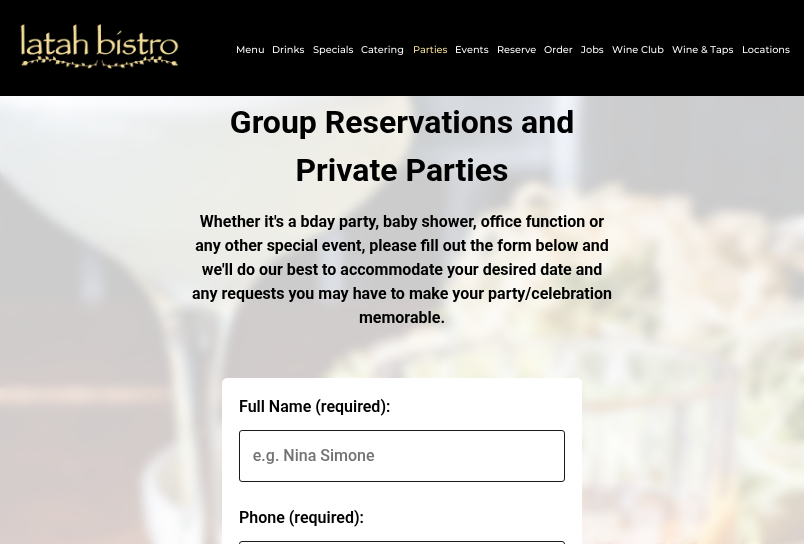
#include <cairo.h>
#include <math.h>
#include <stddef.h>


static void rgb(cairo_t *cr, int r, int g, int b)
{
	cairo_set_source_rgb(cr, r / 255.0, g / 255.0, b / 255.0);
}

static void face(cairo_t *cr, const char *family, double size, int italic, int bold)
{
	cairo_select_font_face(cr, family, italic ? CAIRO_FONT_SLANT_ITALIC : CAIRO_FONT_SLANT_NORMAL,
		bold ? CAIRO_FONT_WEIGHT_BOLD : CAIRO_FONT_WEIGHT_NORMAL);
	cairo_set_font_size(cr, size);
}

static void label(cairo_t *cr, double x, double y, const char *s)
{
	cairo_move_to(cr, x, y);
	cairo_show_text(cr, s);
}

static void rect(cairo_t *cr, double x, double y, double w, double h)
{
	cairo_rectangle(cr, x, y, w, h);
	cairo_fill(cr);
}

static void image(cairo_t *cr, const char *path, double x, double y, double w, double h)
{
	cairo_surface_t *image = cairo_image_surface_create_from_png(path);
	cairo_save(cr);
	cairo_set_source_surface(cr, image, x, y);
	cairo_rectangle(cr, x, y, w, h);
	cairo_fill(cr);
	cairo_restore(cr);
	cairo_surface_destroy(image);
}

static void draw(cairo_t *cr) {
	rgb(cr, 255, 255, 255);
	cairo_paint(cr);
	rgb(cr, 0, 0, 0);
	rect(cr, 0, 0, 804, 96);
	image(cr, "image0.png", 20, 24, 159, 45);
	face(cr, "Montserrat Medium", 9.75, 0, 0);
	rgb(cr, 255, 255, 255);
	label(cr, 236, 53, "Menu");
	label(cr, 272, 53, "Drinks");
	label(cr, 313, 53, "Specials");
	label(cr, 361, 53, "Catering");
	rgb(cr, 243, 221, 152);
	label(cr, 413, 53, "Parties");
	rgb(cr, 255, 255, 255);
	label(cr, 455, 53, "Events");
	label(cr, 497, 53, "Reserve");
	label(cr, 544, 53, "Order");
	label(cr, 581, 53, "Jobs");
	label(cr, 612, 53, "Wine Club");
	label(cr, 672, 53, "Wine & Taps");
	label(cr, 742, 53, "Locations");
	image(cr, "image1.png", 0, 96, 804, 448);
}

int main(void) {
	cairo_surface_t *surface = cairo_image_surface_create(CAIRO_FORMAT_RGB24, 804, 544);
	cairo_t *cr = cairo_create(surface);
	cairo_font_options_t *options = cairo_font_options_create();
	cairo_font_options_set_hint_metrics(options, CAIRO_HINT_METRICS_OFF);
	cairo_font_options_set_hint_style(options, CAIRO_HINT_STYLE_NONE);
	cairo_set_font_options(cr, options);
	cairo_set_miter_limit(cr, 4);
	draw(cr);
	cairo_surface_write_to_png(surface, "render.png");
	cairo_font_options_destroy(options);
	cairo_destroy(cr);
	cairo_surface_destroy(surface);
	return 0;
}
